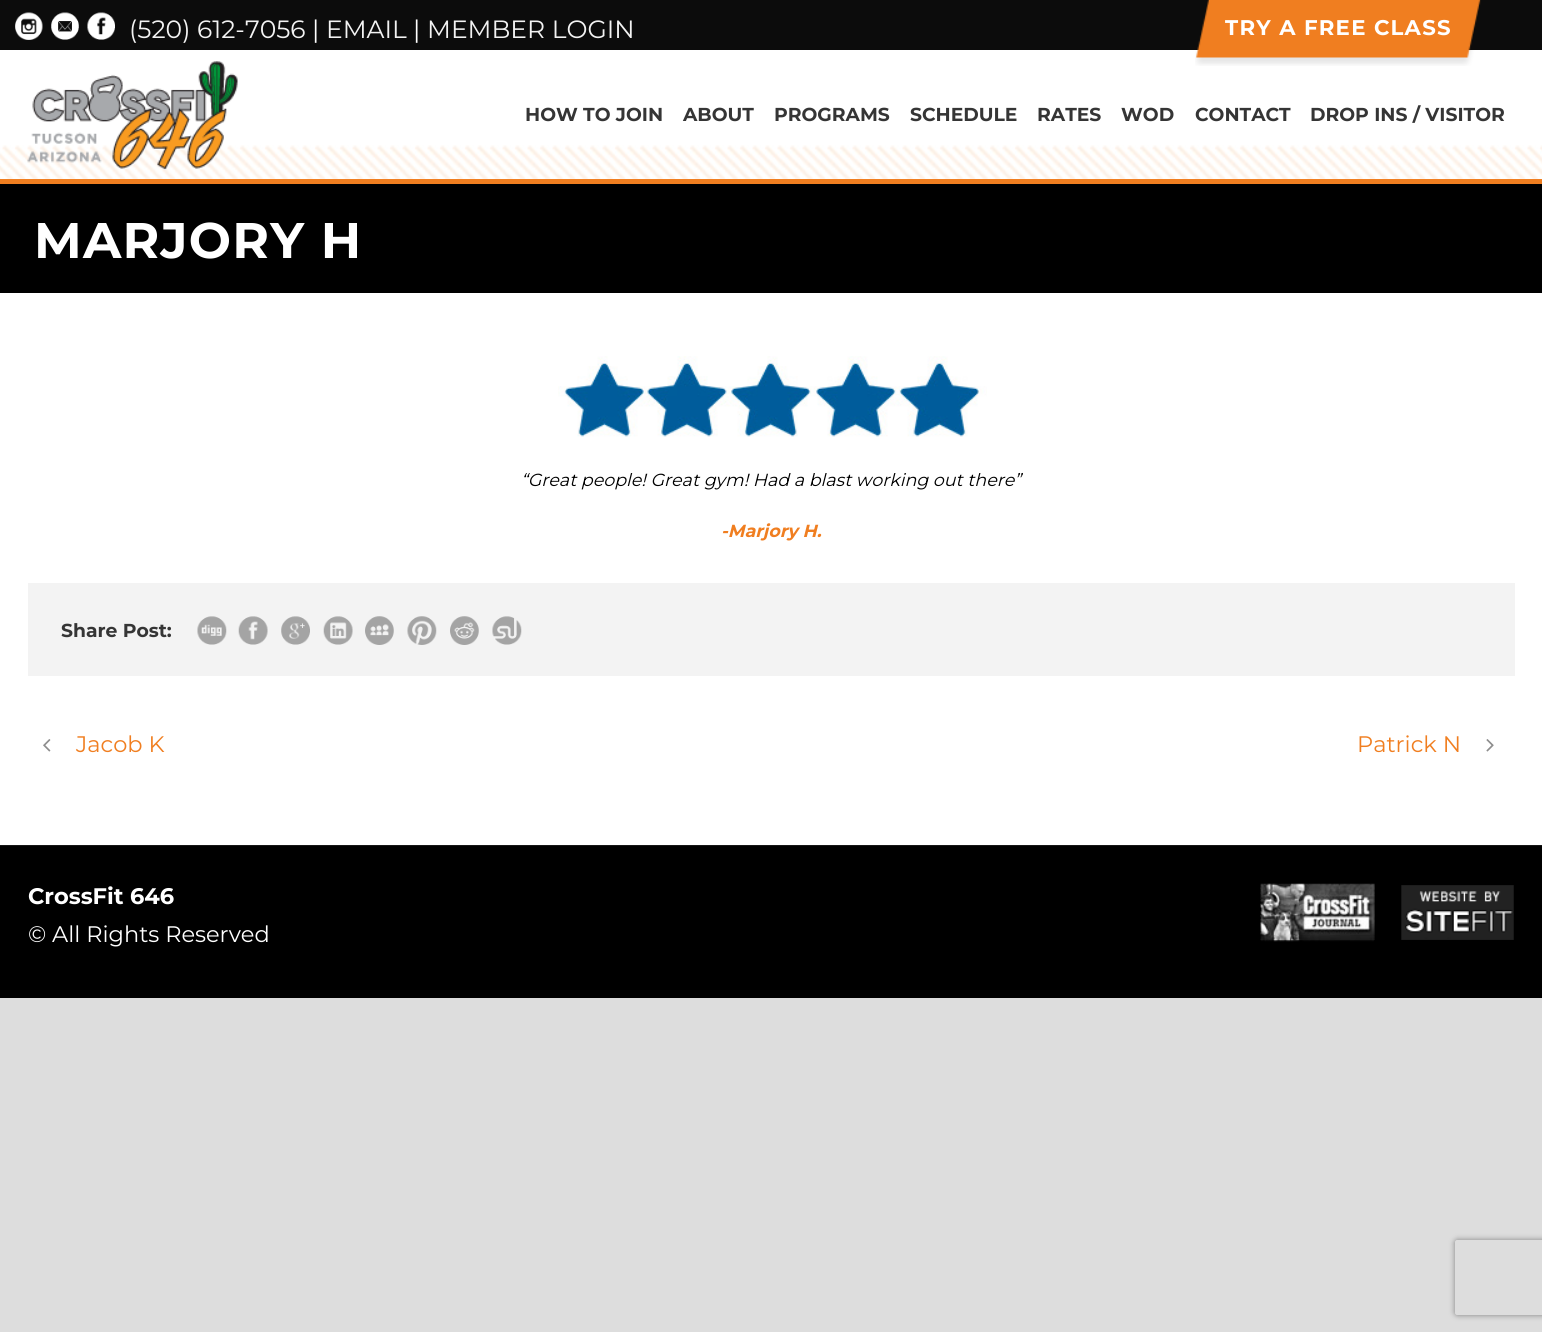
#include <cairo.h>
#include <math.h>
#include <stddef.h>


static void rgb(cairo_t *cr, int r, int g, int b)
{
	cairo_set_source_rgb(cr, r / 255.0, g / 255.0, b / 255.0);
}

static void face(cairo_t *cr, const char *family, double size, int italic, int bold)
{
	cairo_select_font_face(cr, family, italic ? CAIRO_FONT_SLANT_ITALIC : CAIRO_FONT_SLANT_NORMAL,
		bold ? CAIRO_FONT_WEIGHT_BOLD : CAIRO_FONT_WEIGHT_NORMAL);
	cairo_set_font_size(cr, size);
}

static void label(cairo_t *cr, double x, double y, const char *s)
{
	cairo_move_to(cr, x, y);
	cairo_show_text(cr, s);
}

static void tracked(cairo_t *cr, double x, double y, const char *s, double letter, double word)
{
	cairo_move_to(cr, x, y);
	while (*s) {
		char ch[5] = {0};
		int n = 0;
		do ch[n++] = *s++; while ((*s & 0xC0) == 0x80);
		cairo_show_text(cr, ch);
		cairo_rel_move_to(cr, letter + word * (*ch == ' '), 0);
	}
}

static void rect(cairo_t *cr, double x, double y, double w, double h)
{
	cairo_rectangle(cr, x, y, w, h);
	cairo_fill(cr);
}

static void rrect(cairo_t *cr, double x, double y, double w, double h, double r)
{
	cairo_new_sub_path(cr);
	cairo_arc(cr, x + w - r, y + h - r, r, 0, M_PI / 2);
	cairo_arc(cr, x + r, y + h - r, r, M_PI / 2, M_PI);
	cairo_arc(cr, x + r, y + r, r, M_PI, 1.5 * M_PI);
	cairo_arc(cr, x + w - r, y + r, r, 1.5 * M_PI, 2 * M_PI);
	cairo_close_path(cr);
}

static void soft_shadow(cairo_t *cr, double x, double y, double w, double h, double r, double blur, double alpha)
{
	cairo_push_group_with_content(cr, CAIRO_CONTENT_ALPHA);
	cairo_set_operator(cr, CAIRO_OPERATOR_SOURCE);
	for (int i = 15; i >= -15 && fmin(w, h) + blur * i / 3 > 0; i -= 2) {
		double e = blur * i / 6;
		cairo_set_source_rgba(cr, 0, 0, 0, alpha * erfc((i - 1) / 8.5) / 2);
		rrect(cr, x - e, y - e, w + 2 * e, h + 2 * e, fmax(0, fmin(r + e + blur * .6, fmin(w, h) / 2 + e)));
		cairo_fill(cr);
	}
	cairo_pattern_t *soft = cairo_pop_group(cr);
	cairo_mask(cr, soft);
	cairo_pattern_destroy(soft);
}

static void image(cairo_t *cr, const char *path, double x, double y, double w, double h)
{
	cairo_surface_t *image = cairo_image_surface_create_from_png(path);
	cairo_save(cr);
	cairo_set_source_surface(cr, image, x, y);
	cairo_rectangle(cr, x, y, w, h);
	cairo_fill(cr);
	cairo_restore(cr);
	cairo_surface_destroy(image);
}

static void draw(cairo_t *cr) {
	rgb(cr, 221, 221, 221);
	cairo_paint(cr);
	rgb(cr, 255, 255, 255);
	rect(cr, 0, 50, 1542, 795);
	rgb(cr, 12, 12, 12);
	rect(cr, 0, 0, 1542, 50);
	image(cr, "image0.png", 15, 12, 28, 28);
	image(cr, "image1.png", 51, 12, 28, 28);
	image(cr, "image2.png", 87, 12, 28, 28);
	face(cr, "Montserrat", 25, 0, 0);
	rgb(cr, 243, 243, 243);
	label(cr, 129, 38, "(520) 612-7056");
	rgb(cr, 255, 255, 255);
	label(cr, 312, 38, "|");
	rgb(cr, 243, 243, 243);
	label(cr, 326, 38, "EMAIL");
	rgb(cr, 255, 255, 255);
	label(cr, 413, 38, "|");
	rgb(cr, 243, 243, 243);
	label(cr, 427, 38, "MEMBER LOGIN");
	image(cr, "image3.png", 1195, 0, 286, 66);
	face(cr, "Montserrat", 21.25, 0, 1);
	rgb(cr, 255, 255, 255);
	tracked(cr, 1225, 35, "TRY A FREE CLASS", 1.25, 0);
	image(cr, "image4.png", 0, 145, 1542, 34);
	rgb(cr, 240, 126, 32);
	rect(cr, 0, 179, 1542, 5);
	image(cr, "image5.png", 27, 61, 211, 109);
	face(cr, "Montserrat", 18.75, 0, 1);
	rgb(cr, 53, 53, 53);
	label(cr, 525, 121, "HOW TO JOIN");
	label(cr, 683, 121, "ABOUT");
	label(cr, 774, 121, "PROGRAMS");
	label(cr, 910, 121, "SCHEDULE");
	label(cr, 1037, 121, "RATES");
	label(cr, 1121, 121, "WOD");
	label(cr, 1195, 121, "CONTACT");
	label(cr, 1310, 121, "DROP INS / VISITOR");
	rgb(cr, 0, 0, 0);
	rect(cr, 0, 184, 1542, 109);
	face(cr, "Montserrat", 50, 0, 1);
	rgb(cr, 255, 255, 255);
	tracked(cr, 34, 258, "MARJORY H", 1.25, 0);
	image(cr, "image6.png", 558, 356, 429, 81);
	face(cr, "Montserrat", 17.5, 1, 0);
	rgb(cr, 0, 0, 0);
	label(cr, 521, 486, "“Great people! Great gym! Had a blast working out there”");
	face(cr, "Montserrat", 17.5, 1, 1);
	rgb(cr, 240, 126, 32);
	label(cr, 721, 537, "-Marjory H.");
	rgb(cr, 243, 243, 243);
	rect(cr, 28, 583, 1487, 93);
	face(cr, "Montserrat", 18.75, 0, 1);
	rgb(cr, 53, 53, 53);
	label(cr, 61, 637, "Share Post:");
	image(cr, "image7.png", 197, 616, 30, 29);
	image(cr, "image8.png", 238, 616, 30, 29);
	image(cr, "image9.png", 281, 616, 29, 29);
	image(cr, "image10.png", 323, 616, 30, 29);
	image(cr, "image11.png", 365, 616, 29, 29);
	image(cr, "image12.png", 407, 616, 30, 29);
	image(cr, "image13.png", 450, 616, 29, 29);
	image(cr, "image14.png", 492, 616, 30, 29);
	image(cr, "image15.png", 43, 739, 8, 13);
	face(cr, "Montserrat", 22.5, 0, 0);
	rgb(cr, 240, 126, 32);
	label(cr, 76, 752, "Jacob K");
	label(cr, 1357, 752, "Patrick N");
	image(cr, "image16.png", 1486, 739, 8, 13);
	rgb(cr, 0, 0, 0);
	rect(cr, 0, 846, 1542, 152);
	rgb(cr, 22, 22, 22);
	rect(cr, 0, 845, 1542, 1);
	face(cr, "Montserrat", 22.5, 0, 1);
	rgb(cr, 255, 255, 255);
	label(cr, 28, 904, "CrossFit 646");
	face(cr, "Montserrat", 22.5, 0, 0);
	label(cr, 28, 942, "© All Rights Reserved");
	image(cr, "image17.png", 1260, 883, 115, 59);
	image(cr, "image18.png", 1401, 885, 113, 55);
	cairo_save(cr);
	cairo_set_fill_rule(cr, CAIRO_FILL_RULE_EVEN_ODD);
	cairo_new_path(cr);
	cairo_move_to(cr, 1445, 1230);
	cairo_line_to(cr, 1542, 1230);
	cairo_line_to(cr, 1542, 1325);
	cairo_line_to(cr, 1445, 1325);
	cairo_close_path(cr);
	cairo_move_to(cr, 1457.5, 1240);
	cairo_line_to(cr, 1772.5, 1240);
	cairo_curve_to(cr, 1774, 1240, 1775, 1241, 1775, 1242.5);
	cairo_line_to(cr, 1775, 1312.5);
	cairo_curve_to(cr, 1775, 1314, 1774, 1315, 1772.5, 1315);
	cairo_line_to(cr, 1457.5, 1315);
	cairo_curve_to(cr, 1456, 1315, 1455, 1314, 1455, 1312.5);
	cairo_line_to(cr, 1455, 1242.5);
	cairo_curve_to(cr, 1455, 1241, 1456, 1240, 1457.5, 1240);
	cairo_close_path(cr);
	cairo_clip(cr);
	rgb(cr, 128, 128, 128);
	soft_shadow(cr, 1455, 1240, 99, 75, 2.5, 3, 1);
	cairo_restore(cr);
}

int main(void) {
	cairo_surface_t *surface = cairo_image_surface_create(CAIRO_FORMAT_RGB24, 1542, 1332);
	cairo_t *cr = cairo_create(surface);
	cairo_font_options_t *options = cairo_font_options_create();
	cairo_font_options_set_hint_metrics(options, CAIRO_HINT_METRICS_OFF);
	cairo_font_options_set_hint_style(options, CAIRO_HINT_STYLE_NONE);
	cairo_set_font_options(cr, options);
	cairo_set_miter_limit(cr, 4);
	draw(cr);
	cairo_surface_write_to_png(surface, "render.png");
	cairo_font_options_destroy(options);
	cairo_destroy(cr);
	cairo_surface_destroy(surface);
	return 0;
}
